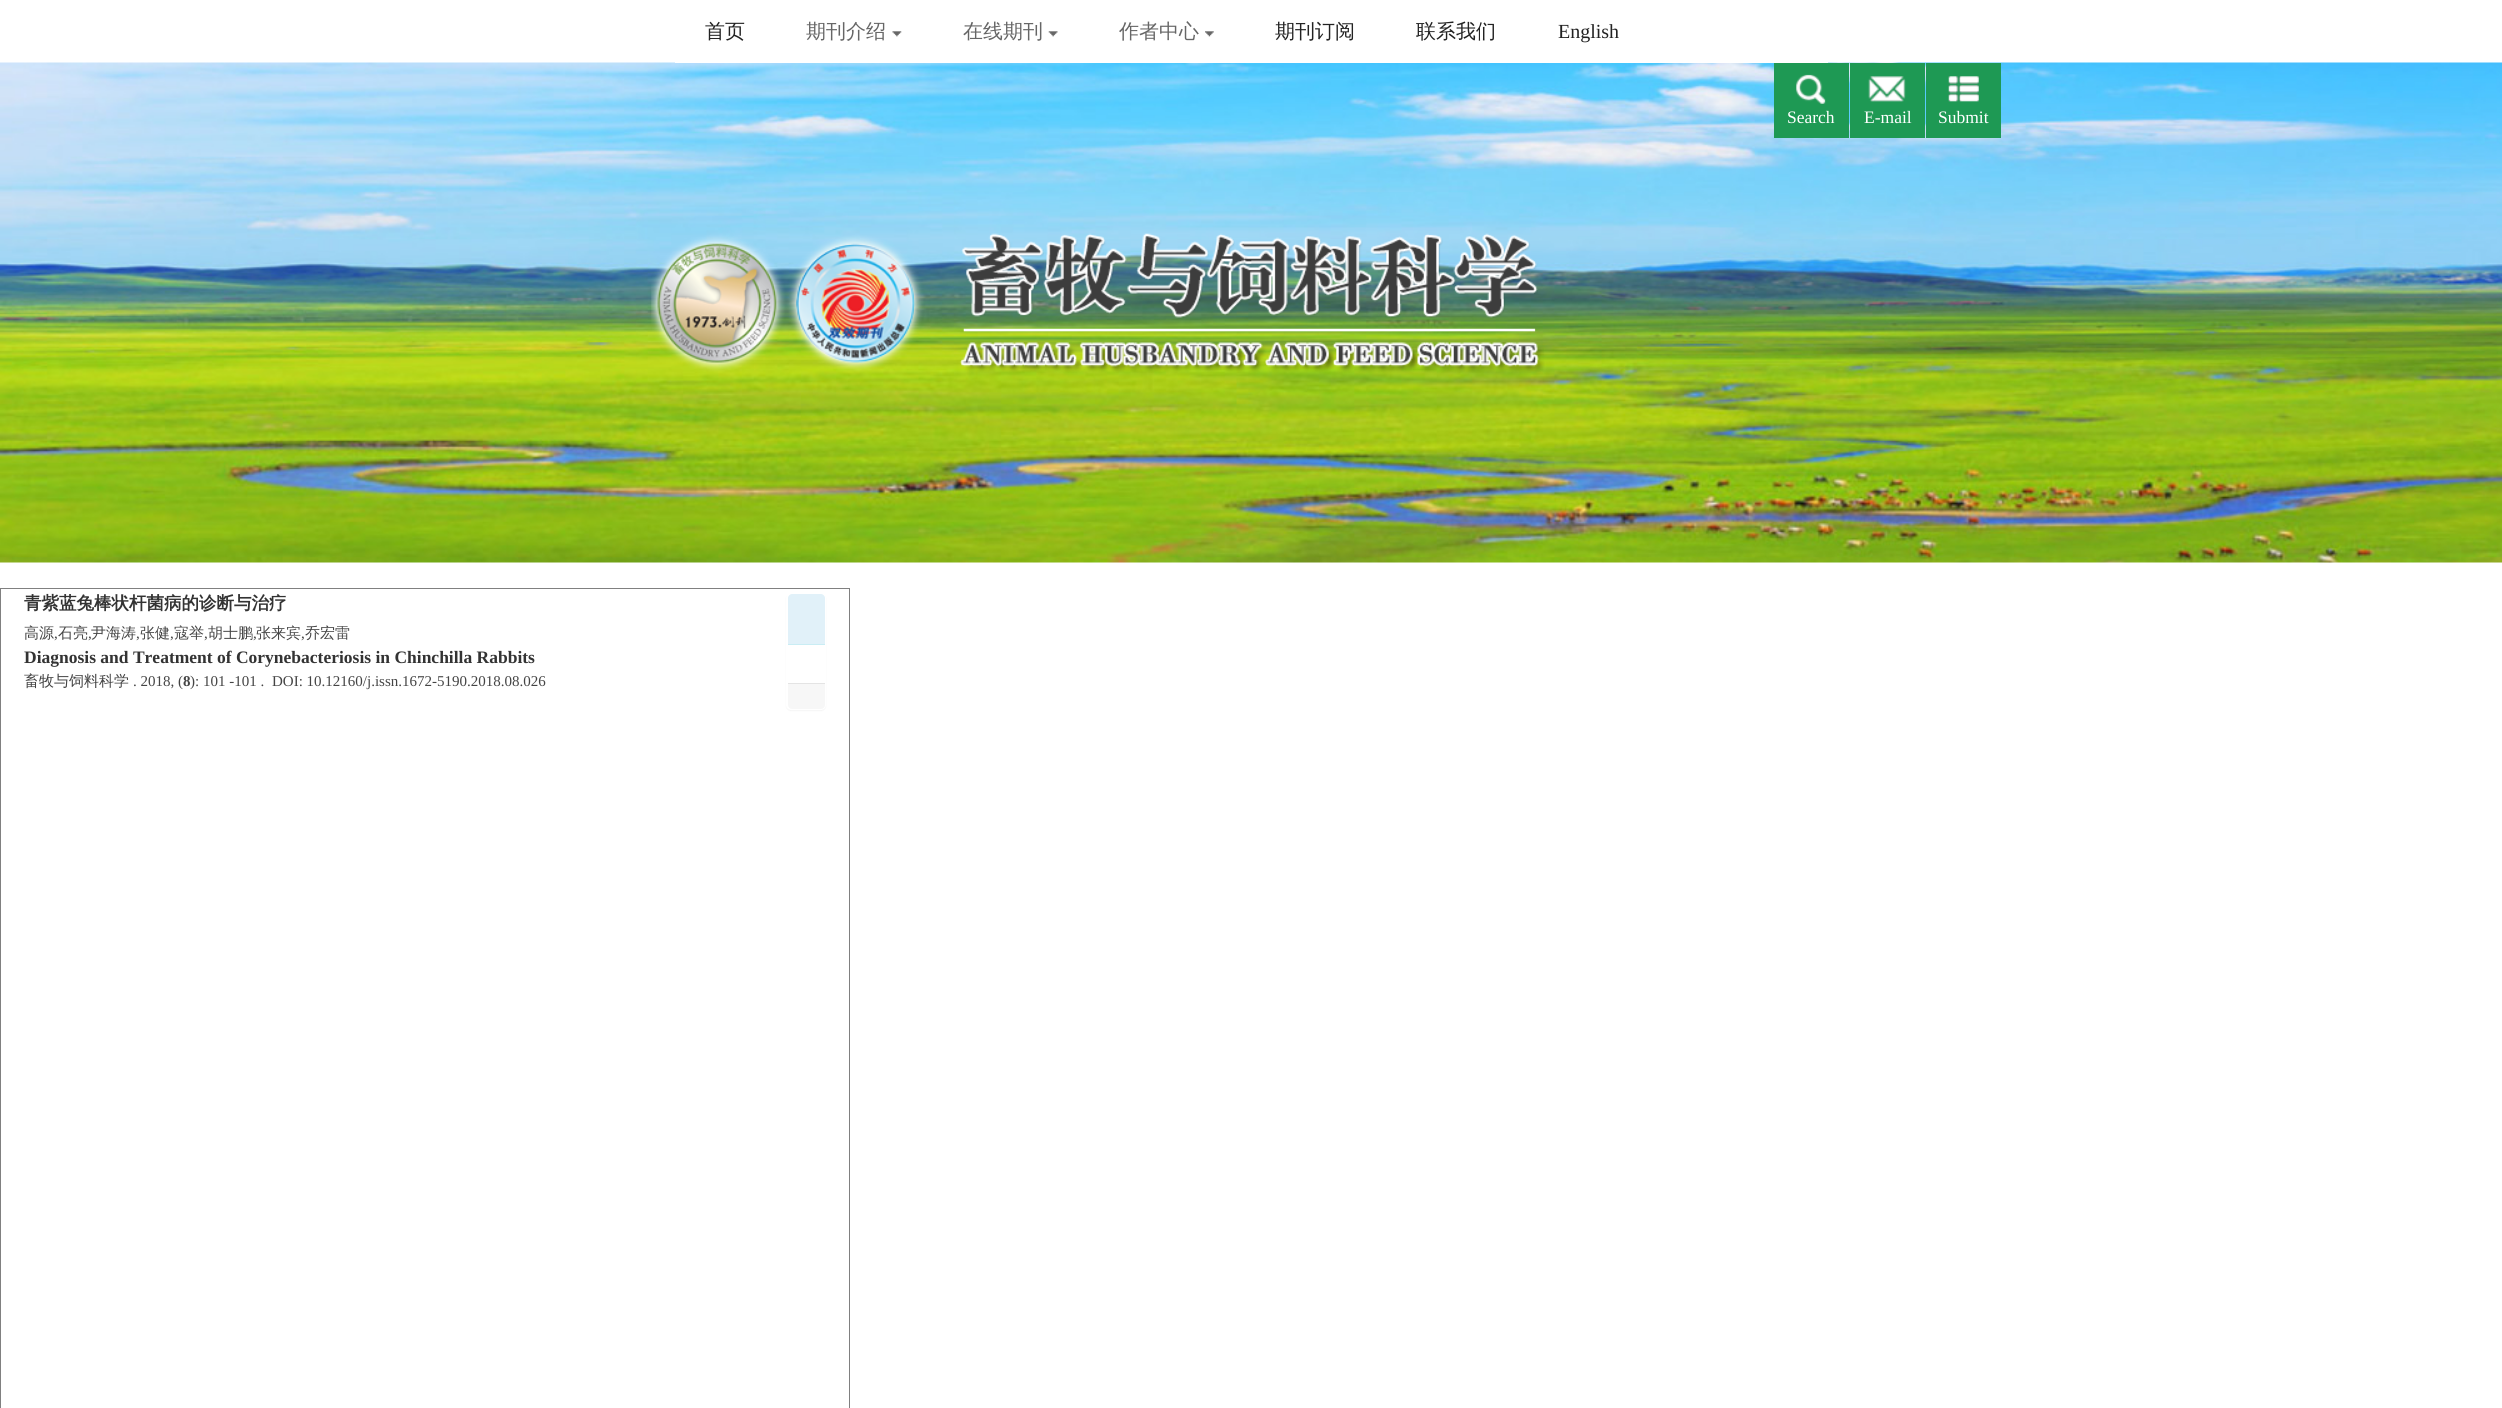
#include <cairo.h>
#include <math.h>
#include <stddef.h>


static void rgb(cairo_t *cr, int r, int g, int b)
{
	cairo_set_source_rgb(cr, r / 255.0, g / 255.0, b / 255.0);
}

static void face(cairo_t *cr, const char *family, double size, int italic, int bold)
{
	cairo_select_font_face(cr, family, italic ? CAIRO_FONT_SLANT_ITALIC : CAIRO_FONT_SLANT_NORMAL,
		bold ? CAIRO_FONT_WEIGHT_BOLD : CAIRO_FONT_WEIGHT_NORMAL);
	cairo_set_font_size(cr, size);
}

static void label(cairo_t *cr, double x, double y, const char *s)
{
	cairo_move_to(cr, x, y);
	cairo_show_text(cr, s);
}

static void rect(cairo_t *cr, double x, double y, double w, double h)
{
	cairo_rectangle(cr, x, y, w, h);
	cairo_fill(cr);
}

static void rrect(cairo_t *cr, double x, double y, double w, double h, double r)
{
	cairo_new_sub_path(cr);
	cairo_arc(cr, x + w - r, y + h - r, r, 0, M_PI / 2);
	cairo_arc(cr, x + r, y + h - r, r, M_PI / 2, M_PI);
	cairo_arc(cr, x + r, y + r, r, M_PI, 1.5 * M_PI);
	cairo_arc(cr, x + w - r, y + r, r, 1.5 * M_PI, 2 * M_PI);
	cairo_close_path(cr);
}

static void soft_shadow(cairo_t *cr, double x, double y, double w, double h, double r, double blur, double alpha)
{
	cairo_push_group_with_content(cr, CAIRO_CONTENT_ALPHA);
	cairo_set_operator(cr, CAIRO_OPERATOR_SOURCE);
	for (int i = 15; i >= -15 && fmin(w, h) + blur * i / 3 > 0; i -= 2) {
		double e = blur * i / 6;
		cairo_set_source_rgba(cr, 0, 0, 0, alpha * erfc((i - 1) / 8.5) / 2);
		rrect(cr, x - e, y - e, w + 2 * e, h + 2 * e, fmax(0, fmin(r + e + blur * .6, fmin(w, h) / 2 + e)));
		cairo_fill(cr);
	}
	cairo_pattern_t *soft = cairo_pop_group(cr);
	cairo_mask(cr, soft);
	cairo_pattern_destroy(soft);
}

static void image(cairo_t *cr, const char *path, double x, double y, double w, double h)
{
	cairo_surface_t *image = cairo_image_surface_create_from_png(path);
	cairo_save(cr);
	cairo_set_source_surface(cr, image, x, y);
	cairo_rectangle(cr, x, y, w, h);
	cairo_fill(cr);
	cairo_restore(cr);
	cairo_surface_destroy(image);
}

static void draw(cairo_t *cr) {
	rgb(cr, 255, 255, 255);
	cairo_paint(cr);
	image(cr, "image4.png", 0, 62, 2502, 501);
	rgb(cr, 255, 255, 255);
	rect(cr, 675, 62, 1153, 1);
	face(cr, "WenQuanYi Zen Hei Medium", 20, 0, 0);
	rgb(cr, 34, 34, 34);
	label(cr, 705, 38, "首页");
	rgb(cr, 102, 102, 102);
	label(cr, 806, 38, "期刊介绍");
	image(cr, "image0.png", 892, 31, 10, 6);
	label(cr, 963, 38, "在线期刊");
	image(cr, "image1.png", 1048, 31, 10, 6);
	label(cr, 1119, 38, "作者中心");
	image(cr, "image2.png", 1205, 31, 9, 6);
	rgb(cr, 34, 34, 34);
	label(cr, 1275, 38, "期刊订阅");
	label(cr, 1416, 38, "联系我们");
	face(cr, "Liberation Serif", 20, 0, 0);
	label(cr, 1558, 38, "English");
	image(cr, "image3.png", 651, 233, 894, 140);
	rgb(cr, 30, 153, 84);
	rect(cr, 1774, 63, 75, 75);
	image(cr, "image5.png", 1796, 74, 30, 30);
	face(cr, "Liberation Serif", 17.5, 0, 0);
	rgb(cr, 255, 255, 255);
	label(cr, 1787, 123, "Search");
	rgb(cr, 30, 153, 84);
	rect(cr, 1850, 63, 75, 75);
	image(cr, "image6.png", 1868, 76, 38, 26);
	rgb(cr, 255, 255, 255);
	label(cr, 1864, 123, "E-mail");
	rgb(cr, 30, 153, 84);
	rect(cr, 1926, 63, 75, 75);
	image(cr, "image7.png", 1948, 76, 31, 26);
	rgb(cr, 255, 255, 255);
	label(cr, 1938, 123, "Submit");
	cairo_rectangle(cr, 0.5, 588.5, 849, 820);
	rgb(cr, 128, 128, 128);
	cairo_set_line_width(cr, 1);
	cairo_stroke(cr);
	face(cr, "WenQuanYi Zen Hei", 17.5, 0, 1);
	rgb(cr, 51, 51, 51);
	label(cr, 24, 609, "青紫蓝兔棒状杆菌病的诊断与治疗");
	face(cr, "WenQuanYi Zen Hei Medium", 15, 0, 0);
	rgb(cr, 68, 68, 68);
	label(cr, 24, 638, "高源");
	face(cr, "Liberation Serif", 15, 0, 0);
	label(cr, 54, 638, ",");
	face(cr, "WenQuanYi Zen Hei Medium", 15, 0, 0);
	label(cr, 58, 638, "石亮");
	face(cr, "Liberation Serif", 15, 0, 0);
	label(cr, 88, 638, ",");
	face(cr, "WenQuanYi Zen Hei Medium", 15, 0, 0);
	label(cr, 91, 638, "尹海涛");
	face(cr, "Liberation Serif", 15, 0, 0);
	label(cr, 136, 638, ",");
	face(cr, "WenQuanYi Zen Hei Medium", 15, 0, 0);
	label(cr, 140, 638, "张健");
	face(cr, "Liberation Serif", 15, 0, 0);
	label(cr, 170, 638, ",");
	face(cr, "WenQuanYi Zen Hei Medium", 15, 0, 0);
	label(cr, 174, 638, "寇举");
	face(cr, "Liberation Serif", 15, 0, 0);
	label(cr, 204, 638, ",");
	face(cr, "WenQuanYi Zen Hei Medium", 15, 0, 0);
	label(cr, 208, 638, "胡士鹏");
	face(cr, "Liberation Serif", 15, 0, 0);
	label(cr, 253, 638, ",");
	face(cr, "WenQuanYi Zen Hei Medium", 15, 0, 0);
	label(cr, 256, 638, "张来宾");
	face(cr, "Liberation Serif", 15, 0, 0);
	label(cr, 301, 638, ",");
	face(cr, "WenQuanYi Zen Hei Medium", 15, 0, 0);
	label(cr, 305, 638, "乔宏雷");
	face(cr, "Liberation Serif", 17.5, 0, 1);
	rgb(cr, 51, 51, 51);
	label(cr, 24, 663, "Diagnosis and Treatment of Corynebacteriosis in Chinchilla Rabbits");
	face(cr, "WenQuanYi Zen Hei Medium", 15, 0, 0);
	rgb(cr, 68, 68, 68);
	label(cr, 24, 686, "畜牧与饲料科学");
	face(cr, "Liberation Serif", 15, 0, 0);
	label(cr, 133, 686, ". 2018, (");
	face(cr, "Liberation Serif", 15, 0, 1);
	label(cr, 183, 686, "8");
	face(cr, "Liberation Serif", 15, 0, 0);
	label(cr, 190, 686, "): 101 -101 .");
	label(cr, 272, 686, "DOI: 10.12160/j.issn.1672-5190.2018.08.026");
	rgb(cr, 51, 51, 51);
	soft_shadow(cr, 786, 594, 40, 117, 5, 0.5, 0.05);
	rgb(cr, 255, 255, 255);
	rrect(cr, 786, 593, 40, 117, 5);
	cairo_fill(cr);
	rgb(cr, 225, 241, 249);
	cairo_new_path(cr);
	cairo_move_to(cr, 792, 594);
	cairo_line_to(cr, 821, 594);
	cairo_curve_to(cr, 823, 594, 825, 596, 825, 598);
	cairo_line_to(cr, 825, 645);
	cairo_line_to(cr, 788, 645);
	cairo_line_to(cr, 788, 598);
	cairo_curve_to(cr, 788, 596, 790, 594, 792, 594);
	cairo_close_path(cr);
	cairo_fill(cr);
	rgb(cr, 201, 237, 244);
	rect(cr, 788, 644, 37, 1);
	rgb(cr, 247, 247, 247);
	cairo_new_path(cr);
	cairo_move_to(cr, 788, 683);
	cairo_line_to(cr, 825, 683);
	cairo_line_to(cr, 825, 705);
	cairo_curve_to(cr, 825, 707, 823, 709, 821, 709);
	cairo_line_to(cr, 792, 709);
	cairo_curve_to(cr, 790, 709, 788, 707, 788, 705);
	cairo_close_path(cr);
	cairo_fill(cr);
	rgb(cr, 228, 228, 228);
	rect(cr, 788, 683, 37, 1);
}

int main(void) {
	cairo_surface_t *surface = cairo_image_surface_create(CAIRO_FORMAT_RGB24, 2502, 1408);
	cairo_t *cr = cairo_create(surface);
	cairo_font_options_t *options = cairo_font_options_create();
	cairo_font_options_set_hint_metrics(options, CAIRO_HINT_METRICS_OFF);
	cairo_font_options_set_hint_style(options, CAIRO_HINT_STYLE_NONE);
	cairo_set_font_options(cr, options);
	cairo_set_miter_limit(cr, 4);
	draw(cr);
	cairo_surface_write_to_png(surface, "render.png");
	cairo_font_options_destroy(options);
	cairo_destroy(cr);
	cairo_surface_destroy(surface);
	return 0;
}
